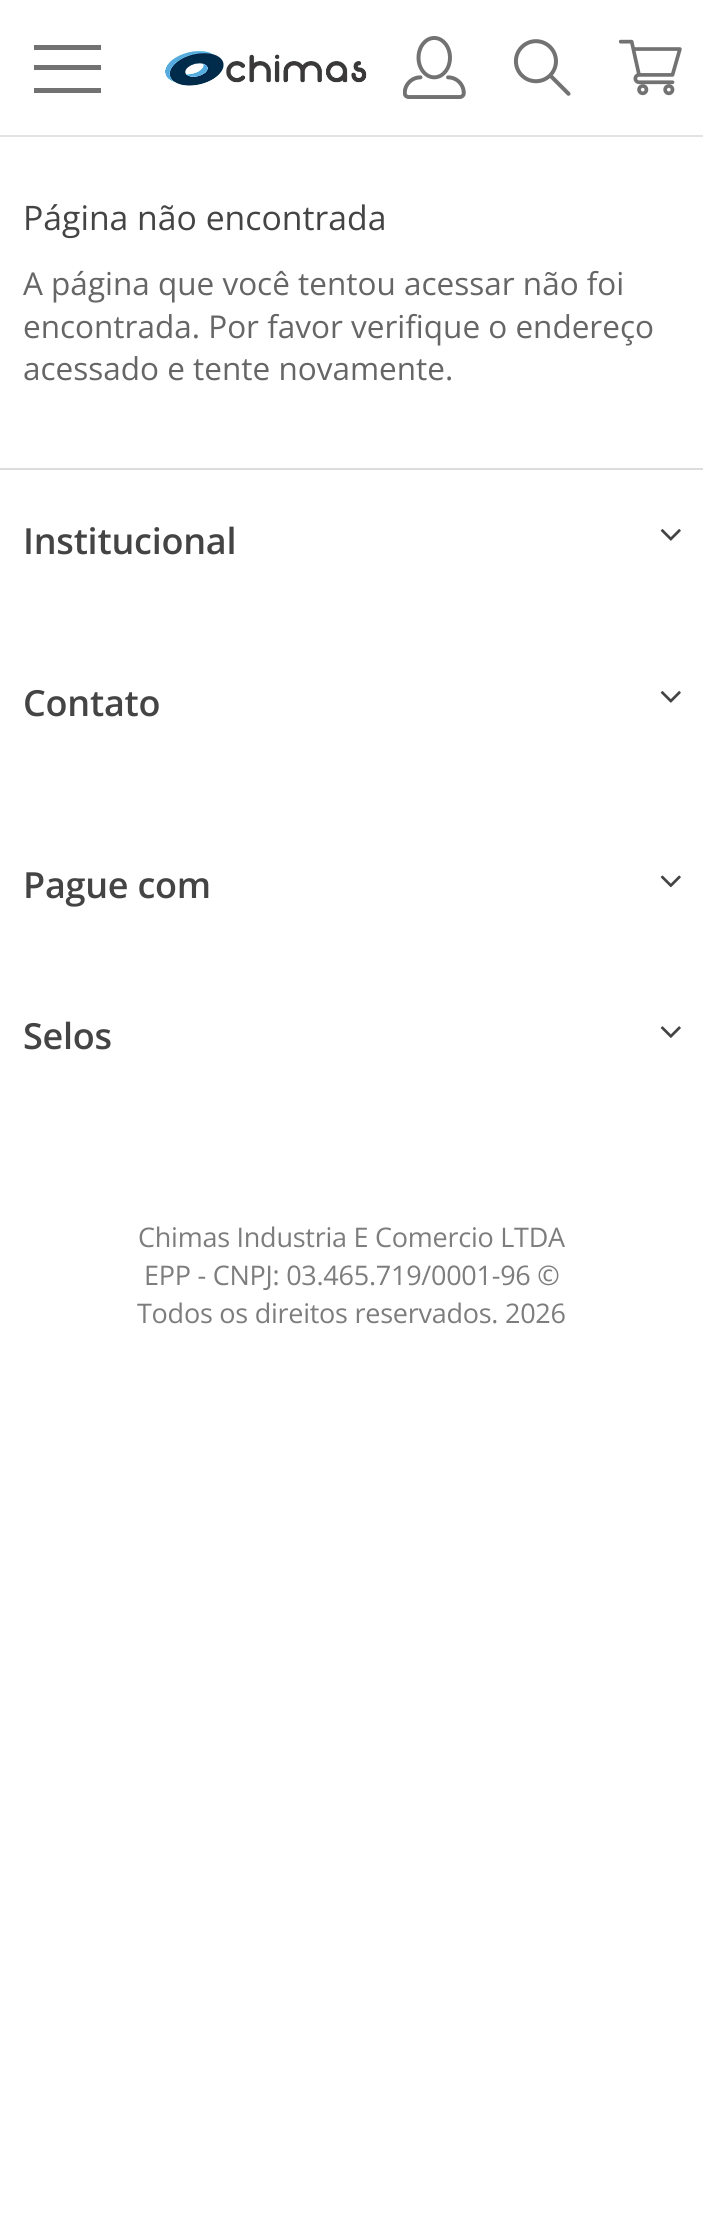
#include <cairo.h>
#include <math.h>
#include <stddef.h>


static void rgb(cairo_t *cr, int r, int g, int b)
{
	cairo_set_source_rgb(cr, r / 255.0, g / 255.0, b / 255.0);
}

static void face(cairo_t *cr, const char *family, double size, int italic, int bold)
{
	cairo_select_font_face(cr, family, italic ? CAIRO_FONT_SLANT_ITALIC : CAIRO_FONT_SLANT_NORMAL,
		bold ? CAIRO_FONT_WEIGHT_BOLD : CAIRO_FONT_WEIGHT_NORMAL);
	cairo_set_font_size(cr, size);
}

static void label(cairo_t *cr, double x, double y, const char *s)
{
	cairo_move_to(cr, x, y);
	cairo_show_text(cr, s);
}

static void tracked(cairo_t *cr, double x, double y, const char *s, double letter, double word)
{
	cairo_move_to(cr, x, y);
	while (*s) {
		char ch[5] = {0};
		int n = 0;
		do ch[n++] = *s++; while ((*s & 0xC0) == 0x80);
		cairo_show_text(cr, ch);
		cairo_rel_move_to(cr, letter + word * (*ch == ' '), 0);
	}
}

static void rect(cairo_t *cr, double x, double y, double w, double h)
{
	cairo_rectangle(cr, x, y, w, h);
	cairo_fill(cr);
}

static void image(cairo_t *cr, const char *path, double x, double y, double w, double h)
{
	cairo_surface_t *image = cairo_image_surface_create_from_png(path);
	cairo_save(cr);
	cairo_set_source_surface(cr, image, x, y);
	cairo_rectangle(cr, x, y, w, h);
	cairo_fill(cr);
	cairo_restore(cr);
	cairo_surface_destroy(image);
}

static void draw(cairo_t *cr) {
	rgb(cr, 255, 255, 255);
	cairo_paint(cr);
	rgb(cr, 227, 227, 227);
	rect(cr, 0, 135, 703, 2);
	rgb(cr, 114, 114, 114);
	rect(cr, 34, 45, 67, 5);
	rect(cr, 34, 65, 67, 5);
	rect(cr, 34, 88, 67, 5);
	image(cr, "image0.png", 165, 51, 202, 35);
	image(cr, "image1.png", 403, 36, 63, 63);
	image(cr, "image2.png", 513, 39, 58, 57);
	image(cr, "image3.png", 619, 39, 63, 57);
	face(cr, "Open Sans", 33.75, 0, 0);
	rgb(cr, 68, 68, 68);
	label(cr, 23, 230, "Página não encontrada");
	face(cr, "Open Sans", 31.5, 0, 0);
	rgb(cr, 102, 102, 102);
	label(cr, 23, 295, "A página que você tentou acessar não foi");
	label(cr, 23, 338, "encontrada. Por favor verifique o endereço");
	label(cr, 23, 380, "acessado e tente novamente.");
	rgb(cr, 220, 220, 220);
	rect(cr, 0, 468, 703, 2);
	face(cr, "Open Sans SemiBold", 36, 0, 0);
	rgb(cr, 68, 68, 68);
	tracked(cr, 23, 554, "Institucional", -0.25, 0);
	image(cr, "image4.png", 660, 529, 21, 12);
	tracked(cr, 23, 716, "Contato", -0.25, 0);
	image(cr, "image4.png", 660, 691, 21, 12);
	tracked(cr, 23, 898, "Pague com", -0.25, 0);
	image(cr, "image5.png", 660, 875, 21, 13);
	tracked(cr, 23, 1049, "Selos", -0.25, 0);
	image(cr, "image6.png", 660, 1026, 21, 12);
	face(cr, "Open Sans", 27, 0, 0);
	rgb(cr, 125, 125, 125);
	tracked(cr, 138, 1247, "Chimas Industria E Comercio LTDA", -0.25, 0);
	tracked(cr, 144, 1285, "EPP - CNPJ: 03.465.719/0001-96 ©", -0.25, 0);
	tracked(cr, 137, 1323, "Todos os direitos reservados. 2026", -0.25, 0);
}

int main(void) {
	cairo_surface_t *surface = cairo_image_surface_create(CAIRO_FORMAT_RGB24, 703, 2234);
	cairo_t *cr = cairo_create(surface);
	cairo_font_options_t *options = cairo_font_options_create();
	cairo_font_options_set_hint_metrics(options, CAIRO_HINT_METRICS_OFF);
	cairo_font_options_set_hint_style(options, CAIRO_HINT_STYLE_NONE);
	cairo_set_font_options(cr, options);
	cairo_set_miter_limit(cr, 4);
	draw(cr);
	cairo_surface_write_to_png(surface, "render.png");
	cairo_font_options_destroy(options);
	cairo_destroy(cr);
	cairo_surface_destroy(surface);
	return 0;
}
